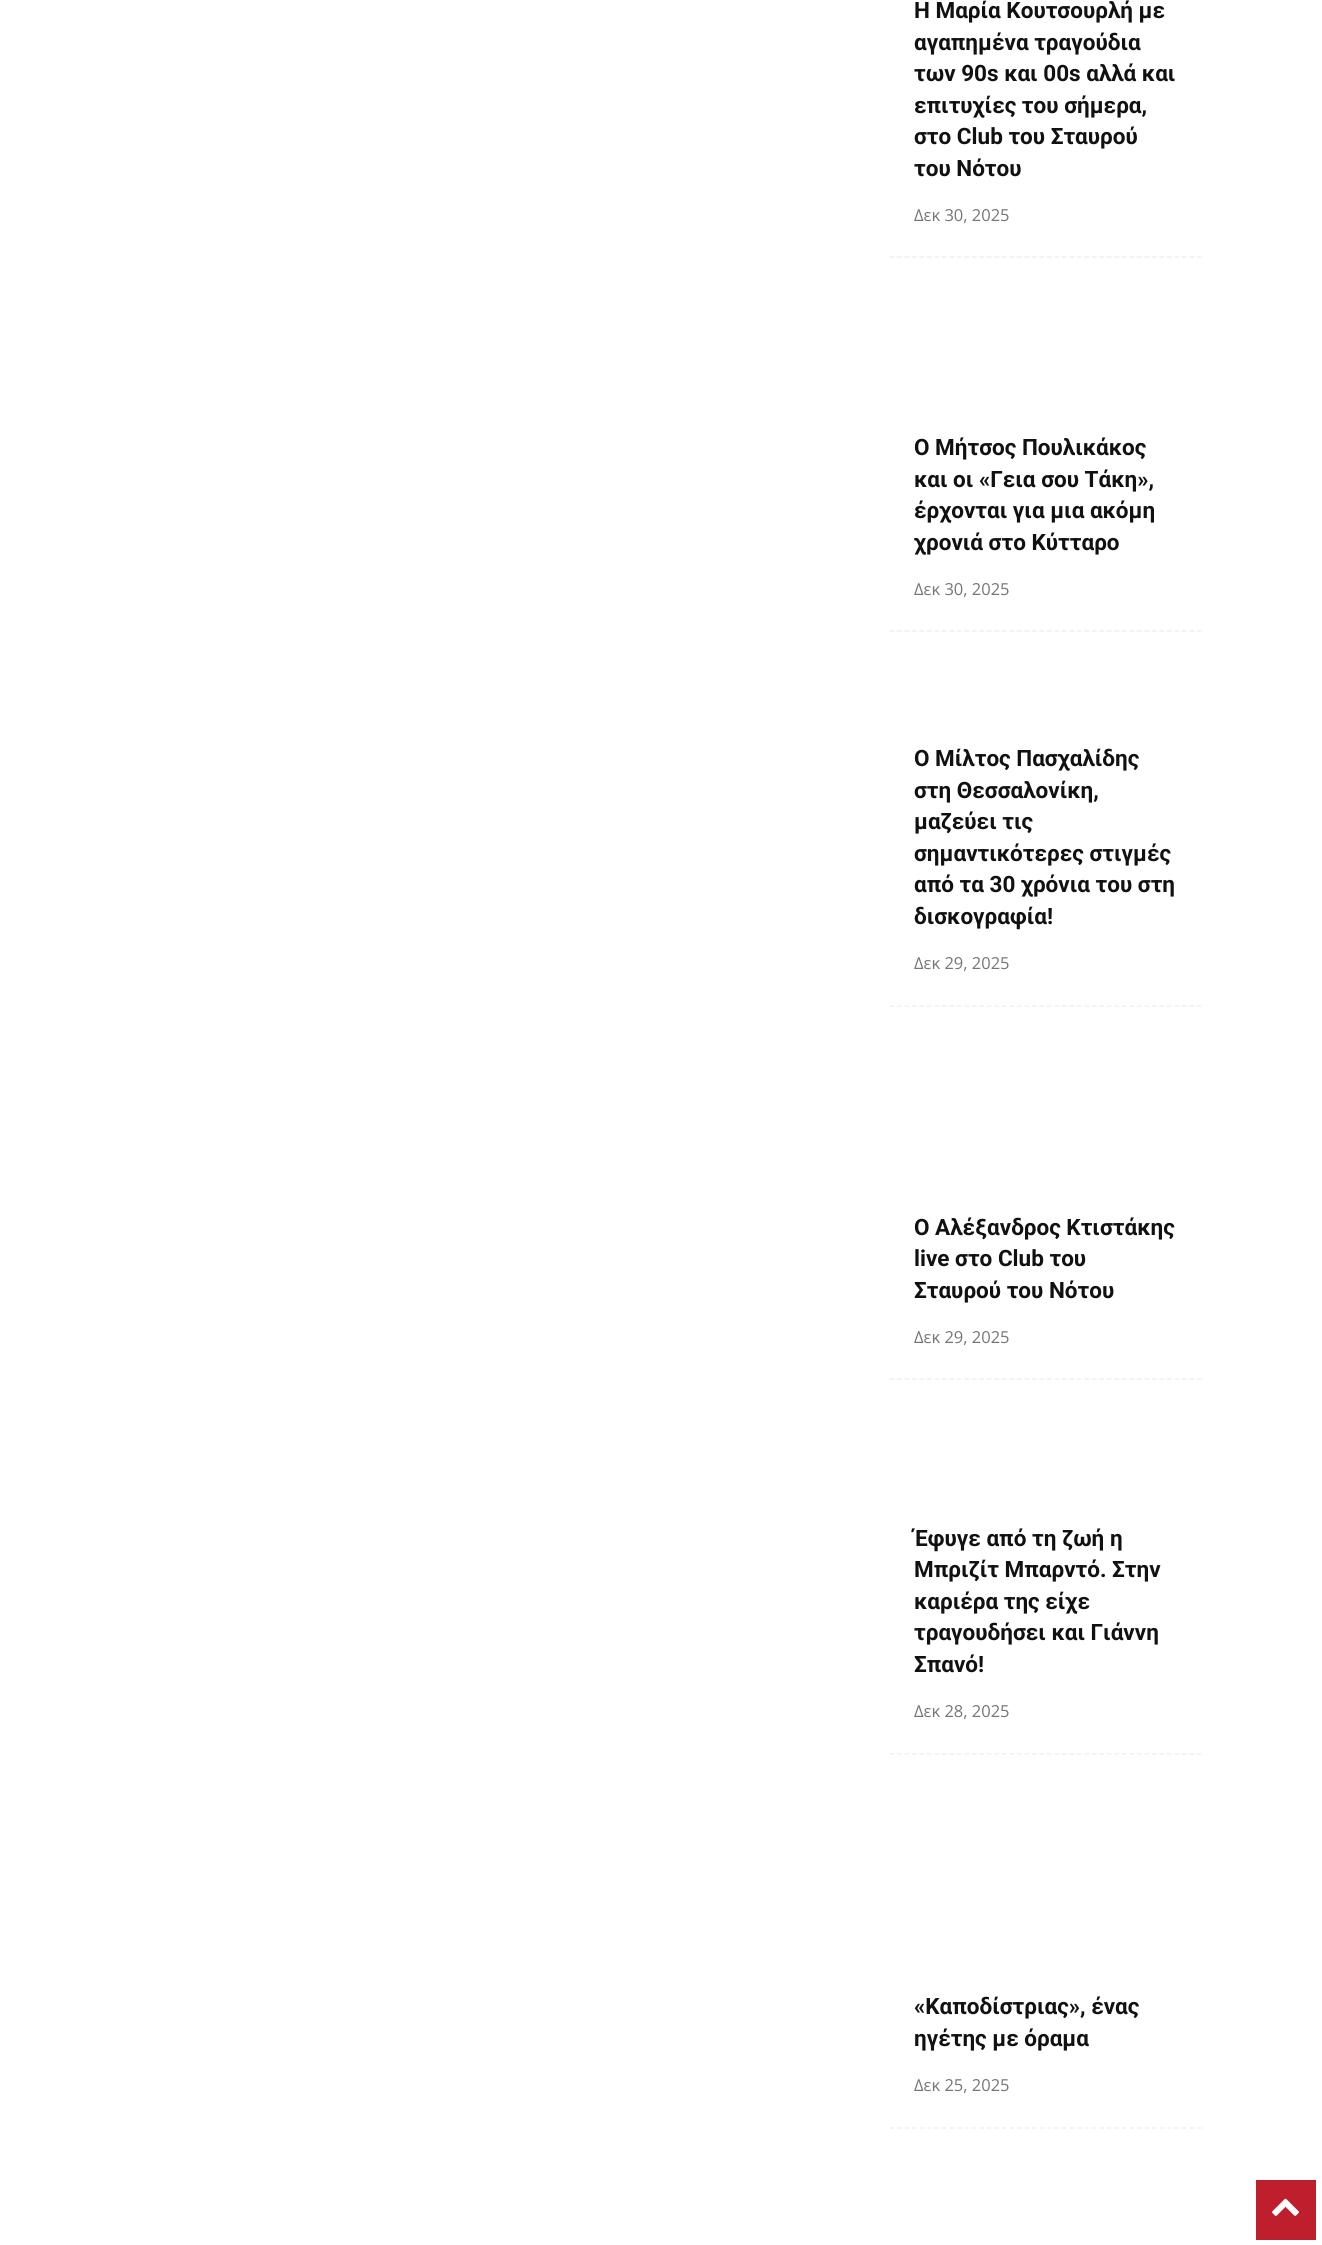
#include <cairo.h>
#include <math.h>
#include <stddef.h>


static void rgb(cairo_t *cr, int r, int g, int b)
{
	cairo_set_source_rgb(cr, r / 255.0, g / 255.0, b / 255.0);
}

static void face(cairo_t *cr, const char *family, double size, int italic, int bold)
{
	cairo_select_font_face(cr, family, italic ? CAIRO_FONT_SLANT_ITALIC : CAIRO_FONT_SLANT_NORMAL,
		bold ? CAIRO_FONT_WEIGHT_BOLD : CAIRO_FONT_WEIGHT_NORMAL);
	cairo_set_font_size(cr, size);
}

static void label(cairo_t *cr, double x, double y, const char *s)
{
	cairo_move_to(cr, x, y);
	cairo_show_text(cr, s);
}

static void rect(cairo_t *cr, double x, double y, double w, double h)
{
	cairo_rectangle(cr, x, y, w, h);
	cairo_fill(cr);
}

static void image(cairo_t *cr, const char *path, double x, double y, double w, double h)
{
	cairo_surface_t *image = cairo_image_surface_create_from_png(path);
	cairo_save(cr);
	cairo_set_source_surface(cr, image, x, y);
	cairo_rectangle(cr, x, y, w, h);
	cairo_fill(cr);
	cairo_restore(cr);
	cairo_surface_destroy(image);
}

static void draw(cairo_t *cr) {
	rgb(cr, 255, 255, 255);
	cairo_paint(cr);
	cairo_new_path(cr);
	cairo_move_to(cr, 889.5, 257);
	cairo_line_to(cr, 1201.5, 257);
	rgb(cr, 241, 241, 241);
	cairo_set_line_width(cr, 1.5);
	cairo_set_dash(cr, (double[]){4.5, 3}, 2, 0);
	cairo_stroke(cr);
	face(cr, "Roboto", 22.5, 0, 1);
	rgb(cr, 17, 17, 17);
	label(cr, 914, 18, "Η Μαρία Κουτσουρλή με");
	label(cr, 914, 50, "αγαπημένα τραγούδια");
	label(cr, 914, 81, "των 90s και 00s αλλά και");
	label(cr, 914, 113, "επιτυχίες του σήμερα,");
	label(cr, 914, 144, "στο Club του Σταυρού");
	label(cr, 914, 176, "του Νότου");
	face(cr, "Open Sans", 16.5, 0, 0);
	rgb(cr, 118, 118, 118);
	label(cr, 914, 221, "Δεκ 30, 2025");
	cairo_new_path(cr);
	cairo_move_to(cr, 889.5, 631);
	cairo_line_to(cr, 1201.5, 631);
	rgb(cr, 241, 241, 241);
	cairo_stroke(cr);
	face(cr, "Roboto", 22.5, 0, 1);
	rgb(cr, 17, 17, 17);
	label(cr, 914, 455, "Ο Μήτσος Πουλικάκος");
	label(cr, 914, 487, "και οι «Γεια σου Τάκη»,");
	label(cr, 914, 518, "έρχονται για μια ακόμη");
	label(cr, 914, 550, "χρονιά στο Κύτταρο");
	face(cr, "Open Sans", 16.5, 0, 0);
	rgb(cr, 118, 118, 118);
	label(cr, 914, 595, "Δεκ 30, 2025");
	cairo_new_path(cr);
	cairo_move_to(cr, 889.5, 1006);
	cairo_line_to(cr, 1201.5, 1006);
	rgb(cr, 241, 241, 241);
	cairo_stroke(cr);
	face(cr, "Roboto", 22.5, 0, 1);
	rgb(cr, 17, 17, 17);
	label(cr, 914, 766, "Ο Μίλτος Πασχαλίδης");
	label(cr, 914, 798, "στη Θεσσαλονίκη,");
	label(cr, 914, 829, "μαζεύει τις");
	label(cr, 914, 861, "σημαντικότερες στιγμές");
	label(cr, 914, 892, "από τα 30 χρόνια του στη");
	label(cr, 914, 924, "δισκογραφία!");
	face(cr, "Open Sans", 16.5, 0, 0);
	rgb(cr, 118, 118, 118);
	label(cr, 914, 969, "Δεκ 29, 2025");
	cairo_new_path(cr);
	cairo_move_to(cr, 889.5, 1379);
	cairo_line_to(cr, 1201.5, 1379);
	rgb(cr, 241, 241, 241);
	cairo_stroke(cr);
	face(cr, "Roboto", 22.5, 0, 1);
	rgb(cr, 17, 17, 17);
	label(cr, 914, 1235, "Ο Αλέξανδρος Κτιστάκης");
	label(cr, 914, 1266, "live στο Club του");
	label(cr, 914, 1298, "Σταυρού του Νότου");
	face(cr, "Open Sans", 16.5, 0, 0);
	rgb(cr, 118, 118, 118);
	label(cr, 914, 1343, "Δεκ 29, 2025");
	cairo_new_path(cr);
	cairo_move_to(cr, 889.5, 1754);
	cairo_line_to(cr, 1201.5, 1754);
	rgb(cr, 241, 241, 241);
	cairo_stroke(cr);
	face(cr, "Roboto", 22.5, 0, 1);
	rgb(cr, 17, 17, 17);
	label(cr, 914, 1546, "Έφυγε από τη ζωή η");
	label(cr, 914, 1577, "Μπριζίτ Μπαρντό. Στην");
	label(cr, 914, 1609, "καριέρα της είχε");
	label(cr, 914, 1640, "τραγουδήσει και Γιάννη");
	label(cr, 914, 1672, "Σπανό!");
	face(cr, "Open Sans", 16.5, 0, 0);
	rgb(cr, 118, 118, 118);
	label(cr, 914, 1717, "Δεκ 28, 2025");
	cairo_new_path(cr);
	cairo_move_to(cr, 889.5, 2128);
	cairo_line_to(cr, 1201.5, 2128);
	rgb(cr, 241, 241, 241);
	cairo_stroke(cr);
	face(cr, "Roboto", 22.5, 0, 1);
	rgb(cr, 17, 17, 17);
	label(cr, 914, 2014, "«Καποδίστριας», ένας");
	label(cr, 914, 2046, "ηγέτης με όραμα");
	face(cr, "Open Sans", 16.5, 0, 0);
	rgb(cr, 118, 118, 118);
	label(cr, 914, 2091, "Δεκ 25, 2025");
	rgb(cr, 191, 30, 45);
	rect(cr, 1256, 2180, 60, 60);
	image(cr, "image0.png", 1272, 2198, 27, 18);
}

int main(void) {
	cairo_surface_t *surface = cairo_image_surface_create(CAIRO_FORMAT_RGB24, 1322, 2245);
	cairo_t *cr = cairo_create(surface);
	cairo_font_options_t *options = cairo_font_options_create();
	cairo_font_options_set_hint_metrics(options, CAIRO_HINT_METRICS_OFF);
	cairo_font_options_set_hint_style(options, CAIRO_HINT_STYLE_NONE);
	cairo_set_font_options(cr, options);
	cairo_set_miter_limit(cr, 4);
	draw(cr);
	cairo_surface_write_to_png(surface, "render.png");
	cairo_font_options_destroy(options);
	cairo_destroy(cr);
	cairo_surface_destroy(surface);
	return 0;
}
